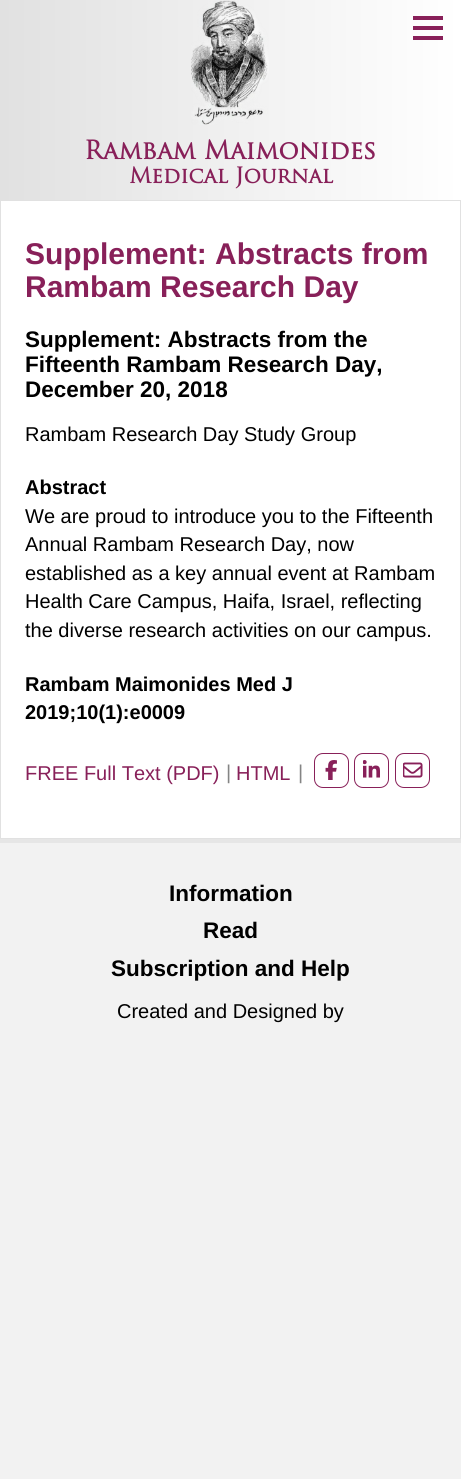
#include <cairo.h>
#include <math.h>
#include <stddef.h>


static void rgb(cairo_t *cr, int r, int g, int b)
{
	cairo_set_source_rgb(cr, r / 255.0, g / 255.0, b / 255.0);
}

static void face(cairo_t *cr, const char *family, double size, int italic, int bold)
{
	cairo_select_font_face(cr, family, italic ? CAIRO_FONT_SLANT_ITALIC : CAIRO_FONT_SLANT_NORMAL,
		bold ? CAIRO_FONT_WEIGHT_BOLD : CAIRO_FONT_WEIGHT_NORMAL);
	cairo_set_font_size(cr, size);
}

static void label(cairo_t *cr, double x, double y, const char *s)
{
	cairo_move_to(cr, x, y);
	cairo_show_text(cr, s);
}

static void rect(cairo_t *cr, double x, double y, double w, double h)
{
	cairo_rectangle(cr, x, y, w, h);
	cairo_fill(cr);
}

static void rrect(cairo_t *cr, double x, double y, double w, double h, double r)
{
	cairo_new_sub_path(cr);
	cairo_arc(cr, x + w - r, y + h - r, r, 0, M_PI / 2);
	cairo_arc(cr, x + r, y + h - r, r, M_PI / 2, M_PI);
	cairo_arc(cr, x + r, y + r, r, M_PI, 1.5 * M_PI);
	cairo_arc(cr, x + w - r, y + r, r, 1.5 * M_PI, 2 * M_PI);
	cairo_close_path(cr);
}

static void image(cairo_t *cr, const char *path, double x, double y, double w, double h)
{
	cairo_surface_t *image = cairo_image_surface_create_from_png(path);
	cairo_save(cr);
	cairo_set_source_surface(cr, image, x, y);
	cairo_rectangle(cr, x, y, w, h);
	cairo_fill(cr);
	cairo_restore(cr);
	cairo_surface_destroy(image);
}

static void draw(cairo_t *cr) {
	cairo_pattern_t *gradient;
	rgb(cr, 242, 242, 242);
	cairo_paint(cr);
	gradient = cairo_pattern_create_linear(0, 100, 461, 100);
	cairo_pattern_add_color_stop_rgba(gradient, 0, 0.882, 0.882, 0.882, 1);
	cairo_pattern_add_color_stop_rgba(gradient, 1, 1, 1, 1, 1);
	cairo_set_source(cr, gradient);
	cairo_pattern_destroy(gradient);
	rect(cr, 0, 0, 461, 200);
	rgb(cr, 136, 32, 89);
	rect(cr, 413, 16, 30, 4);
	rect(cr, 413, 36, 30, 4);
	rect(cr, 413, 26, 30, 4);
	image(cr, "image0.png", 191, 0, 78, 125);
	face(cr, "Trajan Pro", 25, 0, 1);
	label(cr, 84, 159, "Rambam Maimonides");
	face(cr, "Trajan Pro", 21.25, 0, 1);
	label(cr, 129, 183, "Medical Journal");
	rgb(cr, 230, 230, 230);
	rect(cr, 0, 839, 461, 4);
	rgb(cr, 255, 255, 255);
	cairo_rectangle(cr, 0.5, 200.5, 460, 638);
	cairo_fill_preserve(cr);
	rgb(cr, 225, 225, 225);
	cairo_set_line_width(cr, 1);
	cairo_stroke(cr);
	face(cr, "Liberation Sans", 30, 0, 1);
	rgb(cr, 136, 32, 89);
	label(cr, 25, 264, "Supplement: Abstracts from");
	label(cr, 25, 297, "Rambam Research Day");
	face(cr, "Liberation Sans", 22.5, 0, 1);
	rgb(cr, 0, 0, 0);
	label(cr, 25, 347, "Supplement: Abstracts from the");
	label(cr, 25, 372, "Fifteenth Rambam Research Day,");
	label(cr, 25, 397, "December 20, 2018");
	face(cr, "Liberation Sans", 20, 0, 0);
	label(cr, 25, 441, "Rambam Research Day Study Group");
	face(cr, "Liberation Sans", 20, 0, 1);
	label(cr, 25, 494, "Abstract");
	face(cr, "Liberation Sans", 20, 0, 0);
	label(cr, 25, 523, "We are proud to introduce you to the Fifteenth");
	label(cr, 25, 551, "Annual Rambam Research Day, now");
	label(cr, 25, 580, "established as a key annual event at Rambam");
	label(cr, 25, 608, "Health Care Campus, Haifa, Israel, reflecting");
	label(cr, 25, 637, "the diverse research activities on our campus.");
	face(cr, "Liberation Sans", 20, 0, 1);
	label(cr, 25, 691, "Rambam Maimonides Med J");
	label(cr, 25, 719, "2019;10(1):e0009");
	face(cr, "Liberation Sans", 20, 0, 0);
	rgb(cr, 136, 32, 89);
	label(cr, 25, 780, "FREE Full Text (PDF)");
	rgb(cr, 132, 132, 132);
	label(cr, 226, 779, "|");
	rgb(cr, 136, 32, 89);
	label(cr, 236, 780, "HTML");
	rgb(cr, 132, 132, 132);
	label(cr, 298, 779, "|");
	rrect(cr, 314.5, 753.5, 34, 34, 8.5);
	rgb(cr, 136, 32, 89);
	cairo_stroke(cr);
	image(cr, "image1.png", 325, 760, 12, 20);
	rrect(cr, 354.5, 753.5, 34, 34, 8.5);
	cairo_stroke(cr);
	image(cr, "image2.png", 363, 760, 17, 18);
	rrect(cr, 395.5, 753.5, 34, 34, 8.5);
	cairo_stroke(cr);
	image(cr, "image3.png", 403, 762, 20, 16);
	face(cr, "Liberation Sans", 22.5, 0, 1);
	rgb(cr, 0, 0, 0);
	label(cr, 169, 901, "Information");
	label(cr, 203, 938, "Read");
	label(cr, 111, 976, "Subscription and Help");
	face(cr, "Liberation Sans", 20, 0, 0);
	label(cr, 117, 1018, "Created and Designed by");
}

int main(void) {
	cairo_surface_t *surface = cairo_image_surface_create(CAIRO_FORMAT_RGB24, 461, 1479);
	cairo_t *cr = cairo_create(surface);
	cairo_font_options_t *options = cairo_font_options_create();
	cairo_font_options_set_hint_metrics(options, CAIRO_HINT_METRICS_OFF);
	cairo_font_options_set_hint_style(options, CAIRO_HINT_STYLE_NONE);
	cairo_set_font_options(cr, options);
	cairo_set_miter_limit(cr, 4);
	draw(cr);
	cairo_surface_write_to_png(surface, "render.png");
	cairo_font_options_destroy(options);
	cairo_destroy(cr);
	cairo_surface_destroy(surface);
	return 0;
}
